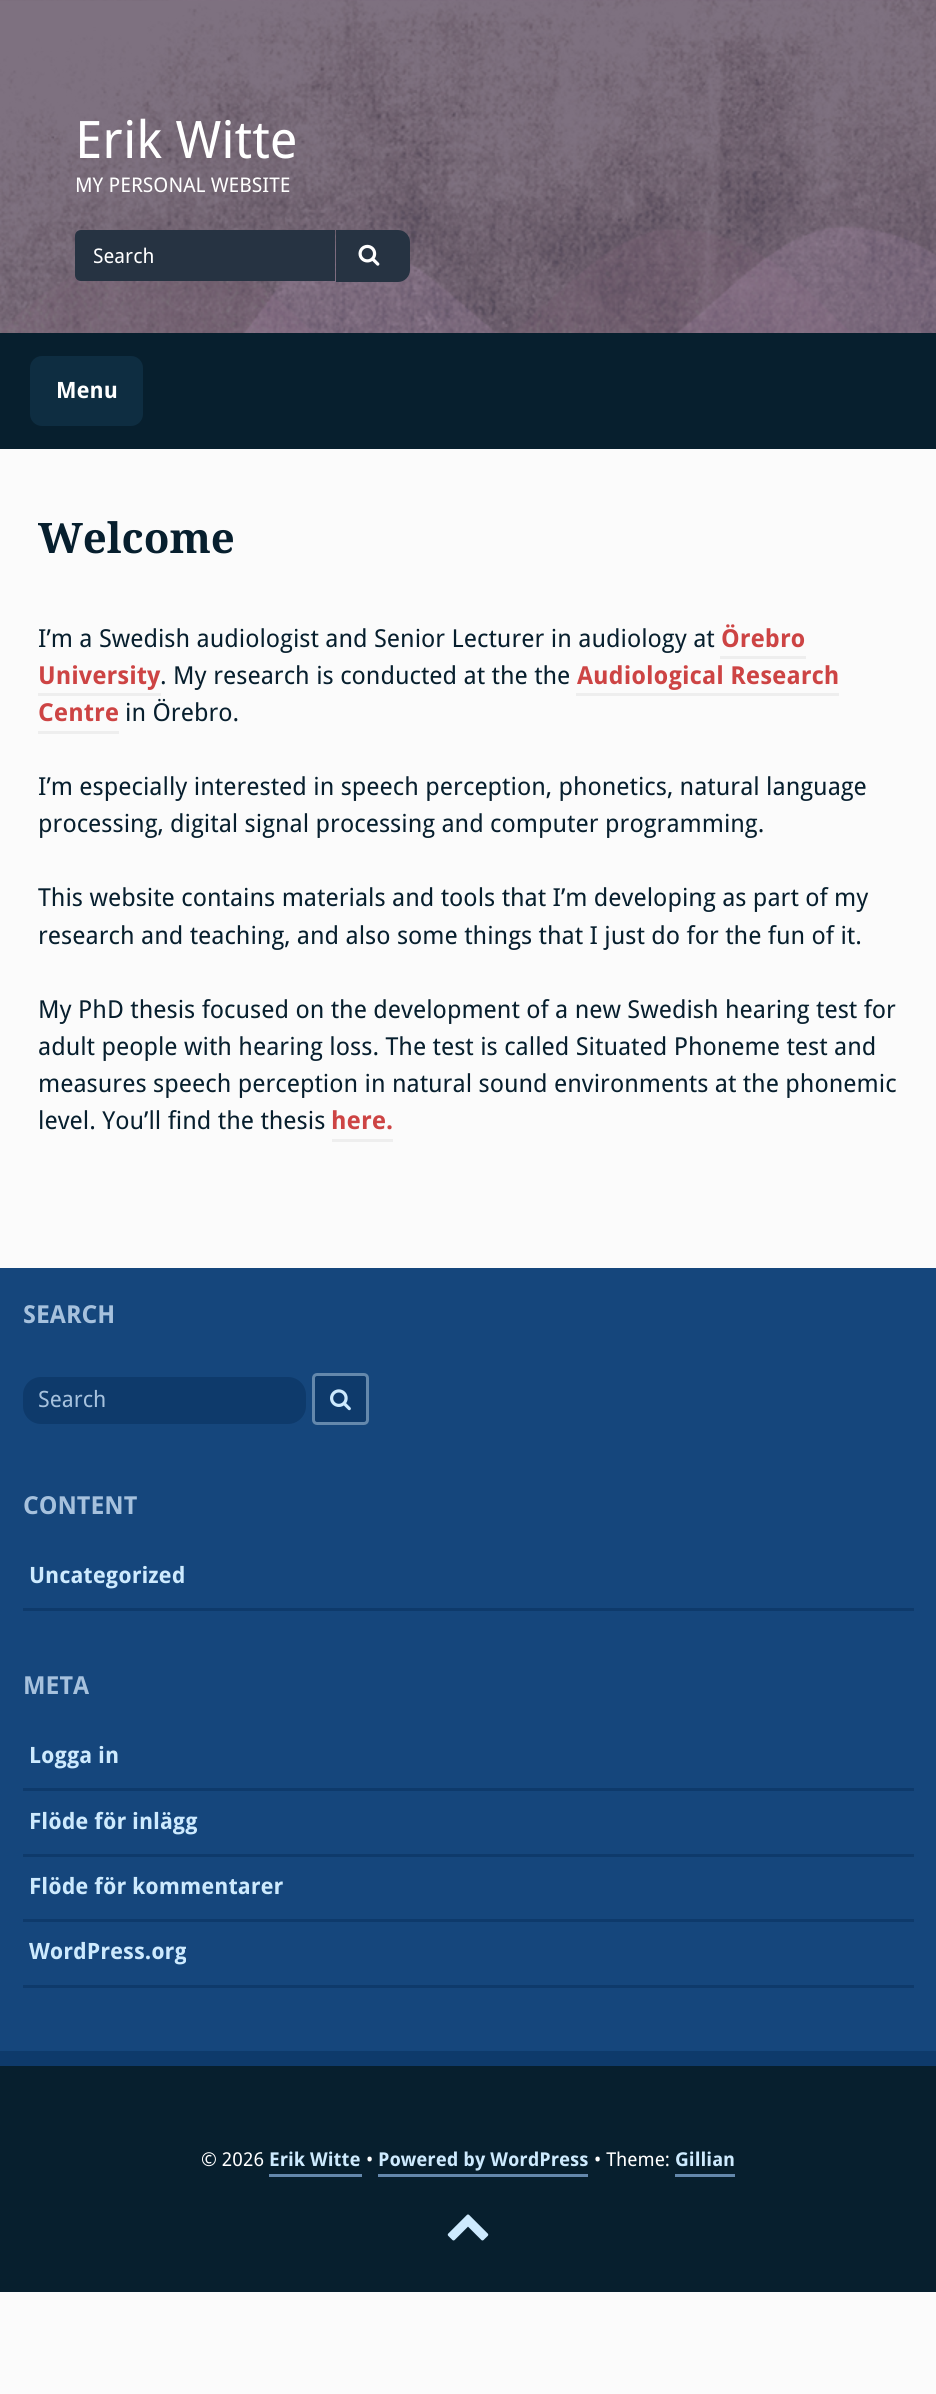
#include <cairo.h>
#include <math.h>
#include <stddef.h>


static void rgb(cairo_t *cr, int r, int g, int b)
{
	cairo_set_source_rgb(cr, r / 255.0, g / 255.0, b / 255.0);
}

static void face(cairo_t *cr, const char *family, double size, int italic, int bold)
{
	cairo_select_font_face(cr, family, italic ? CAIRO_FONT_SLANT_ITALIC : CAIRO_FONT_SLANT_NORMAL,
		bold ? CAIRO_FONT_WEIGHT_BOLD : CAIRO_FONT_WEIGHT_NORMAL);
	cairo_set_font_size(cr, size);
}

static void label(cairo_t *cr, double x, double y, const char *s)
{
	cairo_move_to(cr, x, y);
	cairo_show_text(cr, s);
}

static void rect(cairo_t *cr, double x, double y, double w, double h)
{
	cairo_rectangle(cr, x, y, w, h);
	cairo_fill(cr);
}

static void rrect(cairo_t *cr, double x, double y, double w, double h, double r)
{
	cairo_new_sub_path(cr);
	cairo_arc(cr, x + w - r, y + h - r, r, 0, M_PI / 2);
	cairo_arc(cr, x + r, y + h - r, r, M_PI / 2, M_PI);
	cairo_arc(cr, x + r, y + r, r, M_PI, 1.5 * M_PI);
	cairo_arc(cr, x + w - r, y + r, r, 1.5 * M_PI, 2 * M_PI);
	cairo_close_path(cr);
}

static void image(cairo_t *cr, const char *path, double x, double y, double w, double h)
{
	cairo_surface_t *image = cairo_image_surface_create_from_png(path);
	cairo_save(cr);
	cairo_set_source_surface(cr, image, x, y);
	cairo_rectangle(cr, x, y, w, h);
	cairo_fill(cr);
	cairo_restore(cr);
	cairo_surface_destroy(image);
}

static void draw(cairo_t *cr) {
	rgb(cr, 251, 251, 251);
	cairo_paint(cr);
	image(cr, "image0.png", 0, 0, 936, 333);
	face(cr, "Droid Sans", 51.75, 0, 0);
	rgb(cr, 255, 255, 255);
	label(cr, 75, 158, "Erik Witte");
	face(cr, "Droid Sans", 20.25, 0, 0);
	label(cr, 75, 192, "MY PERSONAL WEBSITE");
	rgb(cr, 38, 51, 66);
	cairo_new_path(cr);
	cairo_move_to(cr, 81, 230);
	cairo_line_to(cr, 335, 230);
	cairo_line_to(cr, 335, 281);
	cairo_line_to(cr, 81, 281);
	cairo_curve_to(cr, 77.5, 281, 75, 278.5, 75, 275);
	cairo_line_to(cr, 75, 236);
	cairo_curve_to(cr, 75, 232.5, 77.5, 230, 81, 230);
	cairo_close_path(cr);
	cairo_fill(cr);
	rgb(cr, 255, 255, 255);
	label(cr, 93, 263, "Search");
	rgb(cr, 38, 51, 66);
	cairo_new_path(cr);
	cairo_move_to(cr, 336, 230);
	cairo_line_to(cr, 398, 230);
	cairo_curve_to(cr, 404.5, 230, 410, 235.5, 410, 242);
	cairo_line_to(cr, 410, 270);
	cairo_curve_to(cr, 410, 276.5, 404.5, 282, 398, 282);
	cairo_line_to(cr, 336, 282);
	cairo_close_path(cr);
	cairo_fill(cr);
	image(cr, "image1.png", 358, 244, 22, 22);
	rgb(cr, 7, 31, 46);
	rect(cr, 0, 333, 936, 116);
	rgb(cr, 14, 45, 65);
	rrect(cr, 31.5, 357.5, 110, 67, 10.5);
	cairo_fill_preserve(cr);
	cairo_set_line_width(cr, 3);
	cairo_stroke(cr);
	face(cr, "Droid Sans", 22.5, 0, 1);
	rgb(cr, 255, 255, 255);
	label(cr, 56, 398, "Menu");
	face(cr, "Droid Serif", 42, 0, 1);
	rgb(cr, 7, 31, 46);
	label(cr, 38, 553, "Welcome");
	face(cr, "Droid Sans", 24.75, 0, 0);
	label(cr, 38, 647, "I’m a Swedish audiologist and Senior Lecturer in audiology at");
	face(cr, "Droid Sans", 24.75, 0, 1);
	rgb(cr, 205, 68, 68);
	label(cr, 721, 647, "Örebro");
	rgb(cr, 238, 238, 238);
	rect(cr, 720, 656, 86, 3);
	rgb(cr, 205, 68, 68);
	label(cr, 38, 684, "University");
	rgb(cr, 238, 238, 238);
	rect(cr, 38, 693, 123, 3);
	face(cr, "Droid Sans", 24.75, 0, 0);
	rgb(cr, 7, 31, 46);
	label(cr, 160, 684, ". My research is conducted at the the");
	face(cr, "Droid Sans", 24.75, 0, 1);
	rgb(cr, 205, 68, 68);
	label(cr, 577, 684, "Audiological Research");
	rgb(cr, 238, 238, 238);
	rect(cr, 576, 693, 263, 3);
	rgb(cr, 205, 68, 68);
	label(cr, 38, 721, "Centre");
	rgb(cr, 238, 238, 238);
	rect(cr, 38, 731, 81, 3);
	face(cr, "Droid Sans", 24.75, 0, 0);
	rgb(cr, 7, 31, 46);
	label(cr, 125, 721, "in Örebro.");
	label(cr, 38, 795, "I’m especially interested in speech perception, phonetics, natural language");
	label(cr, 38, 832, "processing, digital signal processing and computer programming.");
	label(cr, 38, 906, "This website contains materials and tools that I’m developing as part of my");
	label(cr, 38, 944, "research and teaching, and also some things that I just do for the fun of it.");
	label(cr, 38, 1018, "My PhD thesis focused on the development of a new Swedish hearing test for");
	label(cr, 38, 1055, "adult people with hearing loss. The test is called Situated Phoneme test and");
	label(cr, 38, 1092, "measures speech perception in natural sound environments at the phonemic");
	label(cr, 38, 1129, "level. You’ll find the thesis");
	face(cr, "Droid Sans", 24.75, 0, 1);
	rgb(cr, 205, 68, 68);
	label(cr, 331, 1129, "here.");
	rgb(cr, 238, 238, 238);
	rect(cr, 332, 1139, 61, 3);
	rgb(cr, 21, 70, 124);
	rect(cr, 0, 1268, 936, 783);
	rgb(cr, 14, 58, 107);
	rect(cr, 0, 2051, 936, 15);
	rgb(cr, 166, 193, 221);
	label(cr, 23, 1323, "SEARCH");
	rgb(cr, 14, 58, 107);
	rrect(cr, 23, 1377, 283, 47, 18);
	cairo_fill(cr);
	face(cr, "Droid Sans", 22.5, 0, 0);
	rgb(cr, 166, 193, 221);
	label(cr, 38, 1407, "Search");
	rgb(cr, 14, 58, 107);
	rrect(cr, 313.5, 1374.5, 54, 49, 3.5);
	cairo_fill_preserve(cr);
	rgb(cr, 100, 136, 172);
	cairo_stroke(cr);
	image(cr, "image2.png", 330, 1389, 21, 22);
	face(cr, "Droid Sans", 24.75, 0, 1);
	rgb(cr, 166, 193, 221);
	label(cr, 23, 1514, "CONTENT");
	rgb(cr, 14, 58, 107);
	rect(cr, 23, 1608, 891, 3);
	face(cr, "Droid Sans", 22.5, 0, 1);
	rgb(cr, 205, 234, 254);
	label(cr, 29, 1583, "Uncategorized");
	face(cr, "Droid Sans", 24.75, 0, 1);
	rgb(cr, 166, 193, 221);
	label(cr, 23, 1694, "META");
	rgb(cr, 14, 58, 107);
	rect(cr, 23, 1788, 891, 3);
	face(cr, "Droid Sans", 22.5, 0, 1);
	rgb(cr, 205, 234, 254);
	label(cr, 29, 1763, "Logga in");
	rgb(cr, 14, 58, 107);
	rect(cr, 23, 1854, 891, 3);
	rgb(cr, 205, 234, 254);
	label(cr, 29, 1829, "Flöde för inlägg");
	rgb(cr, 14, 58, 107);
	rect(cr, 23, 1919, 891, 3);
	rgb(cr, 205, 234, 254);
	label(cr, 29, 1894, "Flöde för kommentarer");
	rgb(cr, 14, 58, 107);
	rect(cr, 23, 1985, 891, 3);
	rgb(cr, 205, 234, 254);
	label(cr, 29, 1959, "WordPress.org");
	rgb(cr, 7, 31, 46);
	rect(cr, 0, 2066, 936, 226);
	face(cr, "Droid Sans", 19.1, 0, 0);
	rgb(cr, 255, 255, 255);
	label(cr, 201, 2166, "© 2026");
	face(cr, "Droid Sans", 19.1, 0, 1);
	rgb(cr, 205, 234, 254);
	label(cr, 269, 2166, "Erik Witte");
	rgb(cr, 100, 136, 172);
	rect(cr, 269, 2174, 93, 3);
	face(cr, "Droid Sans", 19.1, 0, 0);
	rgb(cr, 255, 255, 255);
	label(cr, 366, 2166, "•");
	face(cr, "Droid Sans", 19.1, 0, 1);
	rgb(cr, 205, 234, 254);
	label(cr, 378, 2166, "Powered by WordPress");
	rgb(cr, 100, 136, 172);
	rect(cr, 378, 2174, 210, 3);
	face(cr, "Droid Sans", 19.1, 0, 0);
	rgb(cr, 255, 255, 255);
	label(cr, 594, 2166, "• Theme:");
	face(cr, "Droid Sans", 19.1, 0, 1);
	rgb(cr, 205, 234, 254);
	label(cr, 675, 2166, "Gillian");
	rgb(cr, 100, 136, 172);
	rect(cr, 675, 2174, 60, 3);
	image(cr, "image3.png", 447, 2214, 42, 27);
}

int main(void) {
	cairo_surface_t *surface = cairo_image_surface_create(CAIRO_FORMAT_RGB24, 936, 2394);
	cairo_t *cr = cairo_create(surface);
	cairo_font_options_t *options = cairo_font_options_create();
	cairo_font_options_set_hint_metrics(options, CAIRO_HINT_METRICS_OFF);
	cairo_font_options_set_hint_style(options, CAIRO_HINT_STYLE_NONE);
	cairo_set_font_options(cr, options);
	cairo_set_miter_limit(cr, 4);
	draw(cr);
	cairo_surface_write_to_png(surface, "render.png");
	cairo_font_options_destroy(options);
	cairo_destroy(cr);
	cairo_surface_destroy(surface);
	return 0;
}
